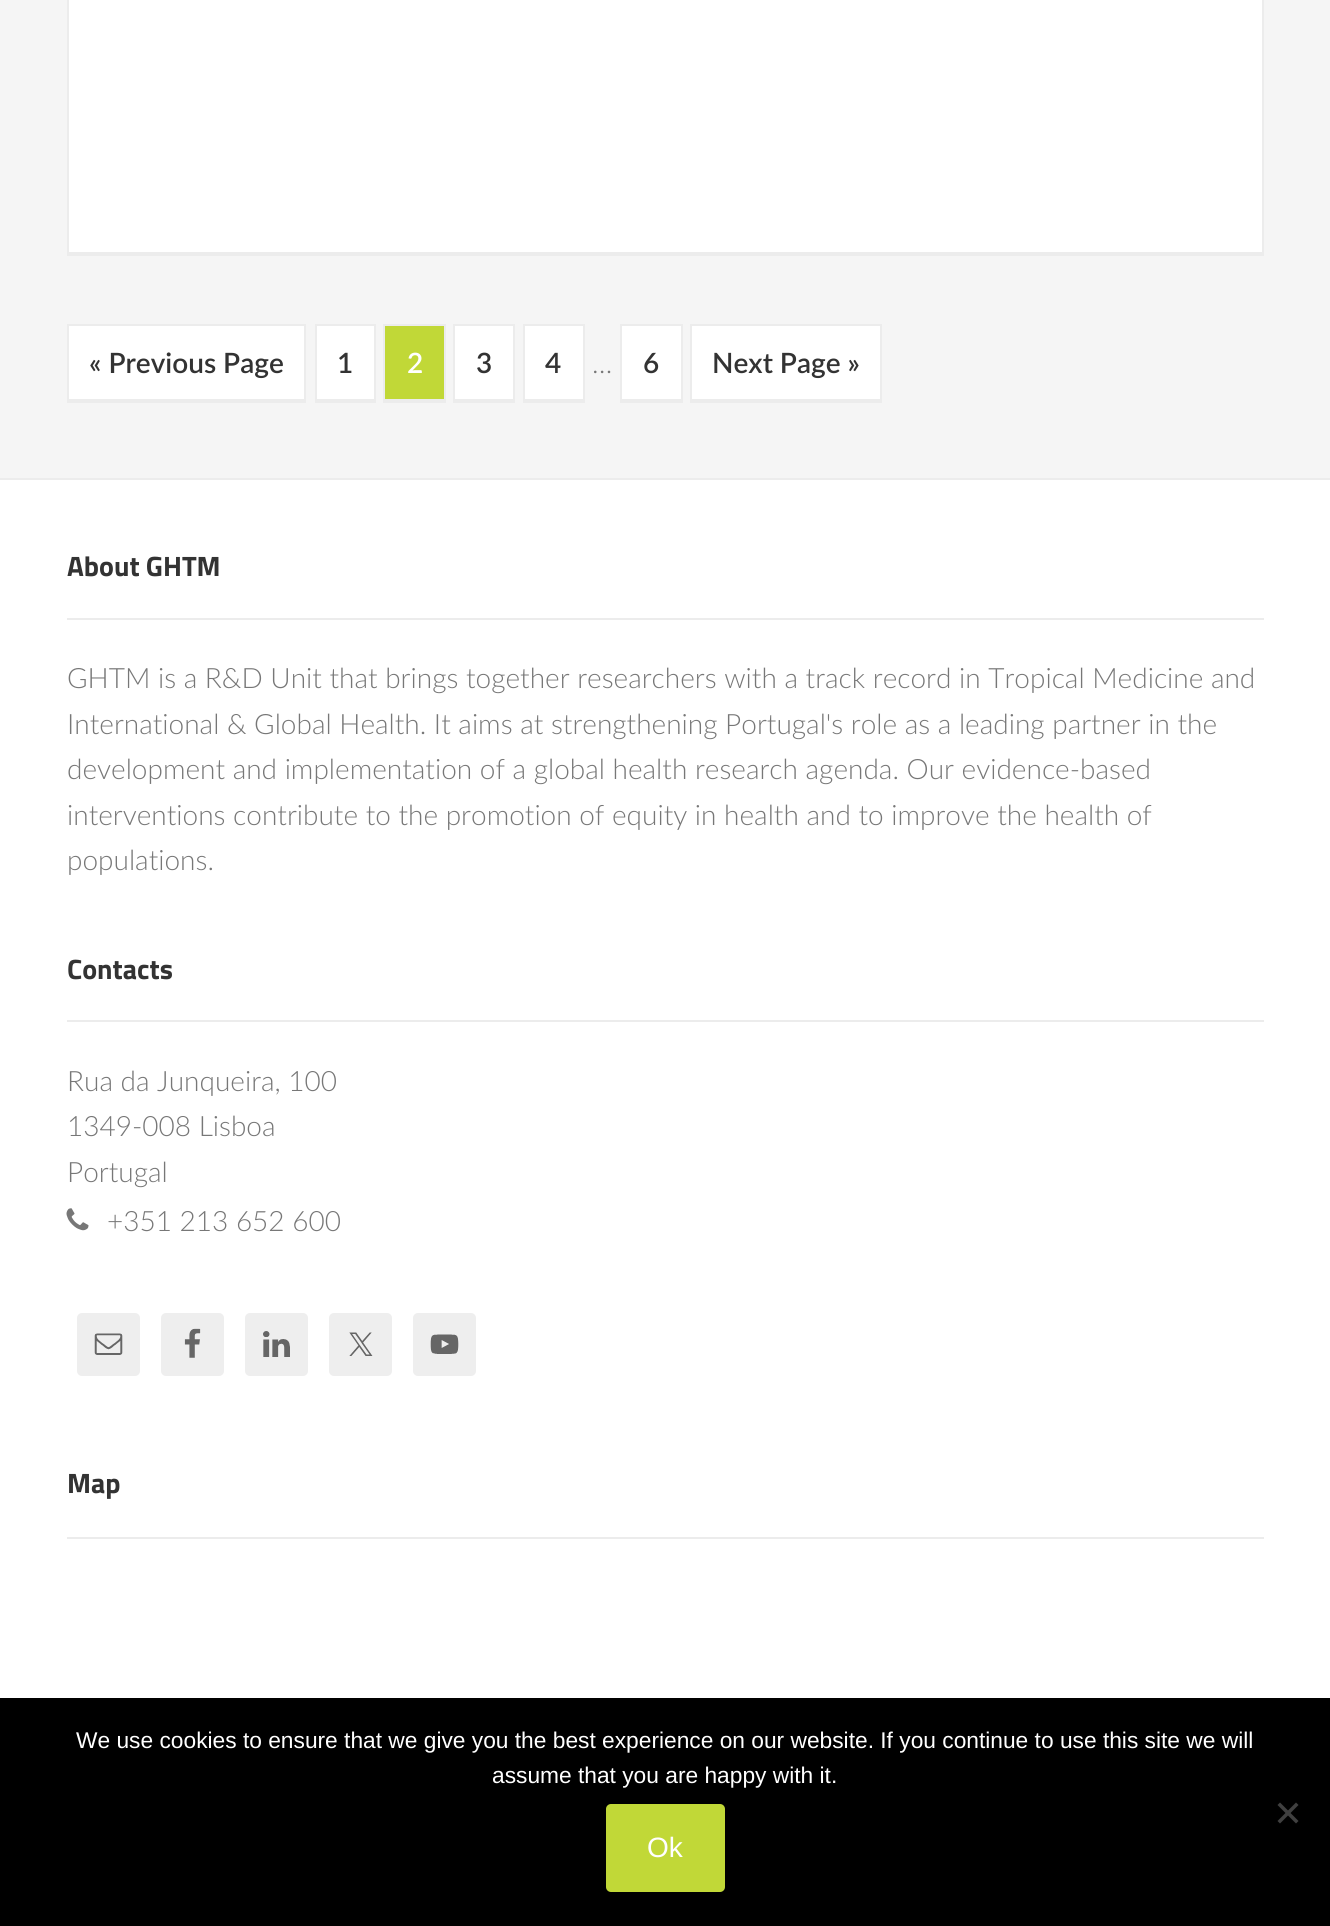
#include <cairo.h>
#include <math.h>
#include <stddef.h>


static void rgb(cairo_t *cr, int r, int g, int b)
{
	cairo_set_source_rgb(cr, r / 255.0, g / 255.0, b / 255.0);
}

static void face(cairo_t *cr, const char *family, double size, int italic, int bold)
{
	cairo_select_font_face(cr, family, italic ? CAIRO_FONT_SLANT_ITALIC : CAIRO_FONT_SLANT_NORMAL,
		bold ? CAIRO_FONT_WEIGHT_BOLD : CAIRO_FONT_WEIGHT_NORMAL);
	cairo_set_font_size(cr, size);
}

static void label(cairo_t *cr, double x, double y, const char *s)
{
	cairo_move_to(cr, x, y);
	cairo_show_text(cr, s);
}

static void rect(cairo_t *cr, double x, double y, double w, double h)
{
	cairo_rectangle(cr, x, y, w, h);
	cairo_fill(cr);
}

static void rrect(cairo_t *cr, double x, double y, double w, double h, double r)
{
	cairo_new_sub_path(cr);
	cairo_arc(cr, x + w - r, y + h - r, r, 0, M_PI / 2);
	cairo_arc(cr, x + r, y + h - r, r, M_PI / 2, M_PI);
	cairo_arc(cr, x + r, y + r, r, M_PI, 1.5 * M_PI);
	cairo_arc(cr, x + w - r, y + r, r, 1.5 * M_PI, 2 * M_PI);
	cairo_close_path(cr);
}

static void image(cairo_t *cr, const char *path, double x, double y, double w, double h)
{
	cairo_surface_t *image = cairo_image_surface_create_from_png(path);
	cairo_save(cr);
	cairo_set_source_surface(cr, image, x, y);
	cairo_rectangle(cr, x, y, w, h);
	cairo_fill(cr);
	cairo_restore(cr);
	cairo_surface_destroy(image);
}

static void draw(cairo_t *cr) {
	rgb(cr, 255, 255, 255);
	cairo_paint(cr);
	rgb(cr, 245, 245, 245);
	rect(cr, 0, 0, 1330, 478);
	rgb(cr, 236, 236, 236);
	cairo_new_path(cr);
	cairo_move_to(cr, 67, 254);
	cairo_line_to(cr, 67, 256);
	cairo_line_to(cr, 1264, 256);
	cairo_line_to(cr, 1264, -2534);
	cairo_line_to(cr, 1264, 254);
	cairo_close_path(cr);
	cairo_fill(cr);
	rgb(cr, 255, 255, 255);
	cairo_rectangle(cr, 68, -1, 1195, 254);
	cairo_fill_preserve(cr);
	rgb(cr, 236, 236, 236);
	cairo_stroke(cr);
	rect(cr, 67, 401, 239, 2);
	rgb(cr, 255, 255, 255);
	cairo_rectangle(cr, 68, 325, 237, 75);
	cairo_fill_preserve(cr);
	rgb(cr, 236, 236, 236);
	cairo_stroke(cr);
	face(cr, "Lato SemiBold", 28, 0, 0);
	rgb(cr, 51, 51, 51);
	label(cr, 89, 373, "« Previous Page");
	rgb(cr, 236, 236, 236);
	rect(cr, 315, 401, 61, 2);
	rgb(cr, 255, 255, 255);
	cairo_rectangle(cr, 316, 325, 59, 75);
	cairo_fill_preserve(cr);
	rgb(cr, 236, 236, 236);
	cairo_stroke(cr);
	rgb(cr, 51, 51, 51);
	label(cr, 337, 373, "1");
	rgb(cr, 236, 236, 236);
	cairo_new_path(cr);
	cairo_move_to(cr, 383, 326);
	cairo_line_to(cr, 383, 403);
	cairo_line_to(cr, 446, 403);
	cairo_line_to(cr, 446, 401);
	cairo_line_to(cr, 383, 401);
	cairo_close_path(cr);
	cairo_fill(cr);
	rgb(cr, 193, 216, 55);
	cairo_rectangle(cr, 384, 325, 61, 75);
	cairo_fill_preserve(cr);
	rgb(cr, 236, 236, 236);
	cairo_stroke(cr);
	rgb(cr, 255, 255, 255);
	label(cr, 407, 373, "2");
	rgb(cr, 236, 236, 236);
	cairo_new_path(cr);
	cairo_move_to(cr, 453, 326);
	cairo_line_to(cr, 453, 403);
	cairo_line_to(cr, 515, 403);
	cairo_line_to(cr, 515, 326);
	cairo_line_to(cr, 514, 326);
	cairo_line_to(cr, 514, 401);
	cairo_line_to(cr, 453, 401);
	cairo_close_path(cr);
	cairo_fill(cr);
	rgb(cr, 255, 255, 255);
	cairo_rectangle(cr, 454, 325, 60, 75);
	cairo_fill_preserve(cr);
	rgb(cr, 236, 236, 236);
	cairo_stroke(cr);
	rgb(cr, 51, 51, 51);
	label(cr, 476, 373, "3");
	rgb(cr, 236, 236, 236);
	cairo_new_path(cr);
	cairo_move_to(cr, 523, 326);
	cairo_line_to(cr, 523, 403);
	cairo_line_to(cr, 585, 403);
	cairo_line_to(cr, 585, 326);
	cairo_line_to(cr, 584, 326);
	cairo_line_to(cr, 584, 401);
	cairo_line_to(cr, 523, 401);
	cairo_close_path(cr);
	cairo_fill(cr);
	rgb(cr, 255, 255, 255);
	cairo_rectangle(cr, 524, 325, 60, 75);
	cairo_fill_preserve(cr);
	rgb(cr, 236, 236, 236);
	cairo_stroke(cr);
	rgb(cr, 51, 51, 51);
	label(cr, 545, 373, "4");
	face(cr, "Lato Light", 28, 0, 0);
	rgb(cr, 119, 119, 119);
	label(cr, 592, 373, "…");
	rgb(cr, 236, 236, 236);
	cairo_new_path(cr);
	cairo_move_to(cr, 620, 401);
	cairo_line_to(cr, 620, 403);
	cairo_line_to(cr, 683, 403);
	cairo_line_to(cr, 683, 326);
	cairo_line_to(cr, 682, 326);
	cairo_line_to(cr, 682, 401);
	cairo_close_path(cr);
	cairo_fill(cr);
	rgb(cr, 255, 255, 255);
	cairo_rectangle(cr, 621, 325, 61, 75);
	cairo_fill_preserve(cr);
	rgb(cr, 236, 236, 236);
	cairo_stroke(cr);
	face(cr, "Lato SemiBold", 28, 0, 0);
	rgb(cr, 51, 51, 51);
	label(cr, 643, 373, "6");
	rgb(cr, 236, 236, 236);
	rect(cr, 690, 401, 192, 2);
	rgb(cr, 255, 255, 255);
	cairo_rectangle(cr, 691, 325, 190, 75);
	cairo_fill_preserve(cr);
	rgb(cr, 236, 236, 236);
	cairo_stroke(cr);
	rgb(cr, 51, 51, 51);
	label(cr, 712, 373, "Next Page »");
	rgb(cr, 236, 236, 236);
	rect(cr, 0, 478, 1330, 2);
	rect(cr, 67, 618, 1197, 2);
	face(cr, "Titillium Web", 28, 0, 1);
	rgb(cr, 51, 51, 51);
	label(cr, 67, 576, "About GHTM");
	face(cr, "Lato Light", 28, 0, 0);
	rgb(cr, 119, 119, 119);
	label(cr, 67, 688, "GHTM is a R&D Unit that brings together researchers with a track record in Tropical Medicine and");
	label(cr, 67, 734, "International & Global Health. It aims at strengthening Portugal's role as a leading partner in the");
	label(cr, 67, 779, "development and implementation of a global health research agenda. Our evidence-based");
	label(cr, 67, 825, "interventions contribute to the promotion of equity in health and to improve the health of");
	label(cr, 67, 870, "populations.");
	rgb(cr, 236, 236, 236);
	rect(cr, 67, 1020, 1197, 2);
	face(cr, "Titillium Web", 28, 0, 1);
	rgb(cr, 51, 51, 51);
	label(cr, 67, 979, "Contacts");
	face(cr, "Lato Light", 28, 0, 0);
	rgb(cr, 119, 119, 119);
	label(cr, 67, 1091, "Rua da Junqueira, 100");
	label(cr, 67, 1136, "1349-008 Lisboa");
	label(cr, 67, 1182, "Portugal");
	image(cr, "image0.png", 66, 1208, 23, 23);
	label(cr, 107, 1231, "+351 213 652 600");
	rgb(cr, 238, 238, 238);
	rrect(cr, 77, 1313, 63, 63, 5);
	cairo_fill(cr);
	image(cr, "image1.png", 94, 1333, 29, 22);
	rrect(cr, 161, 1313, 63, 63, 5);
	cairo_fill(cr);
	image(cr, "image2.png", 184, 1328, 17, 30);
	rrect(cr, 245, 1313, 63, 63, 5);
	cairo_fill(cr);
	image(cr, "image3.png", 263, 1331, 27, 26);
	rrect(cr, 329, 1313, 63, 63, 5);
	cairo_fill(cr);
	image(cr, "image4.png", 349, 1332, 24, 24);
	rrect(cr, 413, 1313, 63, 63, 5);
	cairo_fill(cr);
	image(cr, "image5.png", 430, 1334, 29, 20);
	rgb(cr, 236, 236, 236);
	rect(cr, 67, 1537, 1197, 2);
	face(cr, "Titillium Web", 28, 0, 1);
	rgb(cr, 51, 51, 51);
	label(cr, 67, 1493, "Map");
	rgb(cr, 0, 0, 0);
	rect(cr, 0, 1698, 1330, 228);
	face(cr, "Liberation Sans", 22.75, 0, 0);
	rgb(cr, 255, 255, 255);
	label(cr, 76, 1748, "We use cookies to ensure that we give you the best experience on our website. If you continue to use this site we will");
	label(cr, 492, 1783, "assume that you are happy with it.");
	rgb(cr, 64, 64, 64);
	cairo_new_path(cr);
	cairo_move_to(cr, 1296, 1802.5);
	cairo_line_to(cr, 1298.5, 1805);
	cairo_line_to(cr, 1280, 1823.5);
	cairo_line_to(cr, 1277.5, 1821);
	cairo_close_path(cr);
	cairo_fill(cr);
	cairo_new_path(cr);
	cairo_move_to(cr, 1277.5, 1805);
	cairo_line_to(cr, 1280, 1802.5);
	cairo_line_to(cr, 1298.5, 1821);
	cairo_line_to(cr, 1296, 1823.5);
	cairo_close_path(cr);
	cairo_fill(cr);
	rgb(cr, 193, 216, 55);
	rrect(cr, 606, 1804, 119, 88, 5);
	cairo_fill(cr);
	face(cr, "Liberation Sans", 28, 0, 0);
	rgb(cr, 255, 255, 255);
	label(cr, 647, 1857, "Ok");
}

int main(void) {
	cairo_surface_t *surface = cairo_image_surface_create(CAIRO_FORMAT_RGB24, 1330, 1926);
	cairo_t *cr = cairo_create(surface);
	cairo_font_options_t *options = cairo_font_options_create();
	cairo_font_options_set_hint_metrics(options, CAIRO_HINT_METRICS_OFF);
	cairo_font_options_set_hint_style(options, CAIRO_HINT_STYLE_NONE);
	cairo_set_font_options(cr, options);
	cairo_set_miter_limit(cr, 4);
	draw(cr);
	cairo_surface_write_to_png(surface, "render.png");
	cairo_font_options_destroy(options);
	cairo_destroy(cr);
	cairo_surface_destroy(surface);
	return 0;
}
